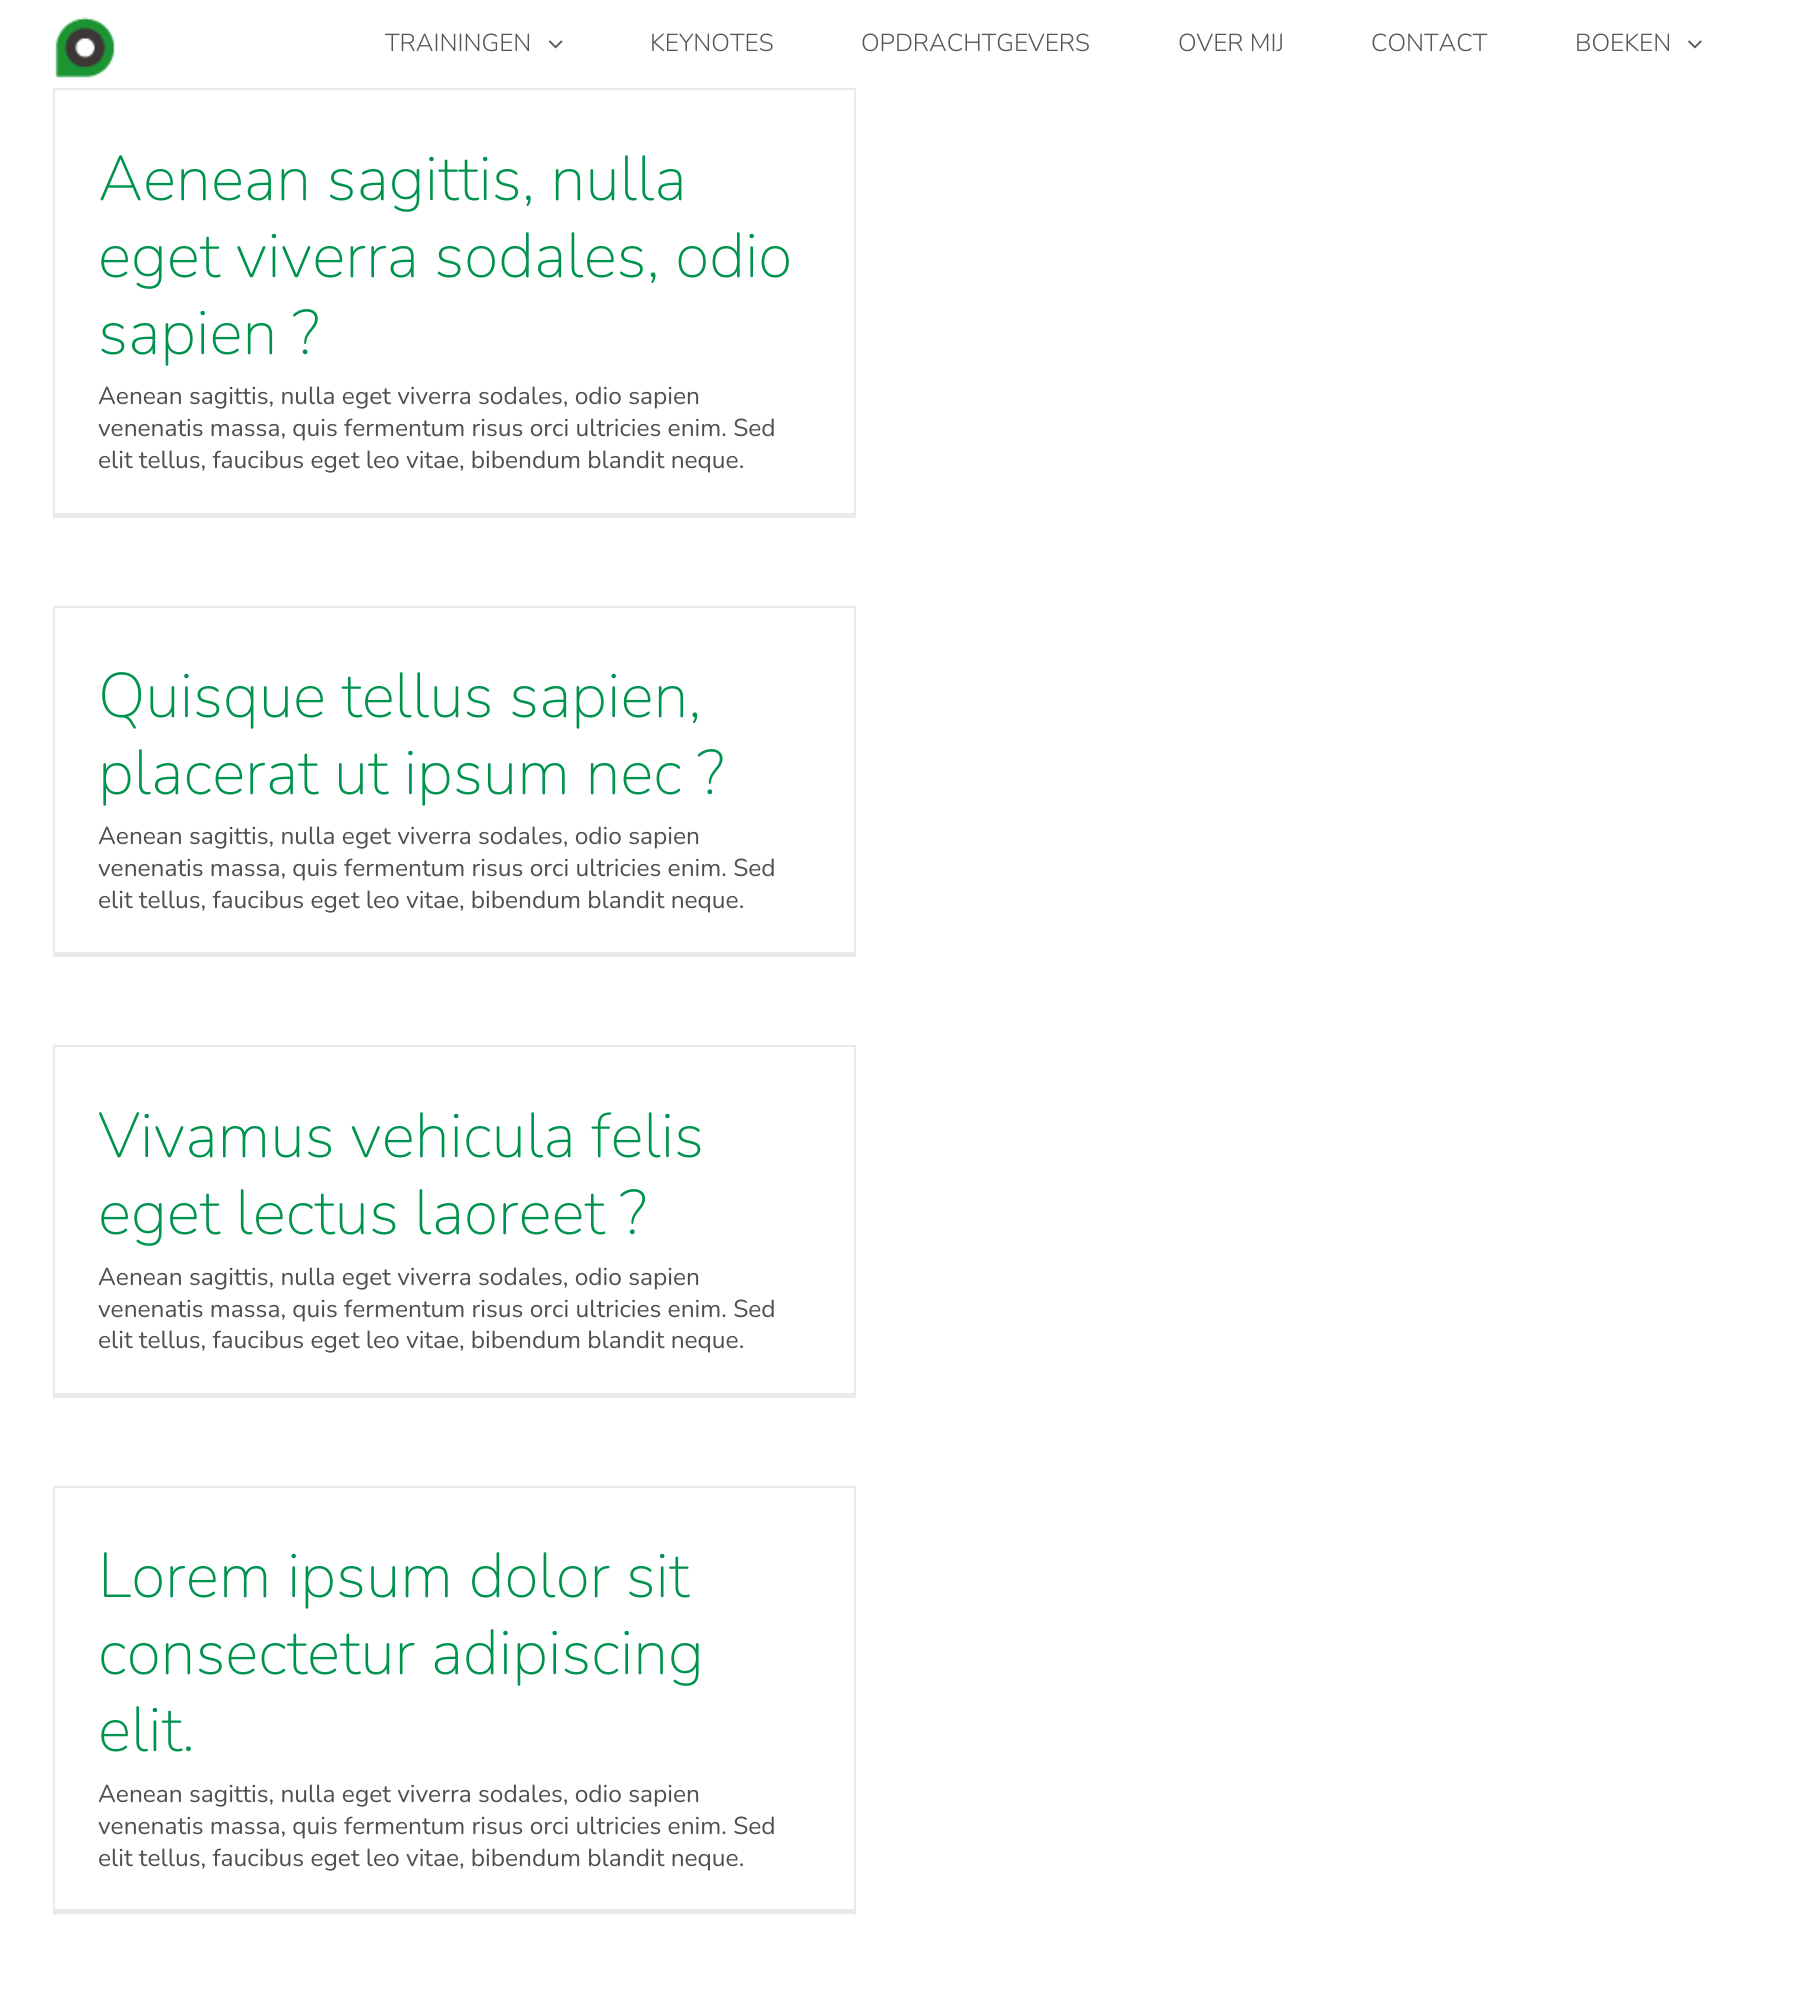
#include <cairo.h>
#include <math.h>
#include <stddef.h>


static void rgb(cairo_t *cr, int r, int g, int b)
{
	cairo_set_source_rgb(cr, r / 255.0, g / 255.0, b / 255.0);
}

static void face(cairo_t *cr, const char *family, double size, int italic, int bold)
{
	cairo_select_font_face(cr, family, italic ? CAIRO_FONT_SLANT_ITALIC : CAIRO_FONT_SLANT_NORMAL,
		bold ? CAIRO_FONT_WEIGHT_BOLD : CAIRO_FONT_WEIGHT_NORMAL);
	cairo_set_font_size(cr, size);
}

static void label(cairo_t *cr, double x, double y, const char *s)
{
	cairo_move_to(cr, x, y);
	cairo_show_text(cr, s);
}

static void rect(cairo_t *cr, double x, double y, double w, double h)
{
	cairo_rectangle(cr, x, y, w, h);
	cairo_fill(cr);
}

static void image(cairo_t *cr, const char *path, double x, double y, double w, double h)
{
	cairo_surface_t *image = cairo_image_surface_create_from_png(path);
	cairo_save(cr);
	cairo_set_source_surface(cr, image, x, y);
	cairo_rectangle(cr, x, y, w, h);
	cairo_fill(cr);
	cairo_restore(cr);
	cairo_surface_destroy(image);
}

static void draw(cairo_t *cr) {
	rgb(cr, 255, 255, 255);
	cairo_paint(cr);
	image(cr, "image0.png", 55, 17, 60, 61);
	face(cr, "Nunito Light", 24.5, 0, 0);
	rgb(cr, 86, 86, 84);
	label(cr, 385, 51, "TRAININGEN");
	image(cr, "image1.png", 548, 40, 15, 9);
	label(cr, 650, 51, "KEYNOTES");
	label(cr, 861, 51, "OPDRACHTGEVERS");
	label(cr, 1178, 51, "OVER MIJ");
	label(cr, 1371, 51, "CONTACT");
	label(cr, 1575, 51, "BOEKEN");
	image(cr, "image2.png", 1688, 40, 14, 9);
	rgb(cr, 235, 234, 234);
	rect(cr, 53, 88, 803, 2);
	rect(cr, 854, 88, 2, 430);
	rect(cr, 53, 513, 803, 5);
	rect(cr, 53, 88, 2, 430);
	face(cr, "Nunito ExtraLight", 63, 0, 0);
	rgb(cr, 0, 147, 78);
	label(cr, 98, 200, "Aenean sagittis, nulla");
	label(cr, 98, 277, "eget viverra sodales, odio");
	label(cr, 98, 354, "sapien ?");
	face(cr, "Nunito", 24.5, 0, 0);
	rgb(cr, 79, 79, 79);
	label(cr, 98, 404, "Aenean sagittis, nulla eget viverra sodales, odio sapien");
	label(cr, 98, 436, "venenatis massa, quis fermentum risus orci ultricies enim. Sed");
	label(cr, 98, 468, "elit tellus, faucibus eget leo vitae, bibendum blandit neque.");
	rgb(cr, 235, 234, 234);
	rect(cr, 53, 606, 803, 2);
	rect(cr, 854, 606, 2, 351);
	rect(cr, 53, 952, 803, 5);
	rect(cr, 53, 606, 2, 351);
	face(cr, "Nunito ExtraLight", 63, 0, 0);
	rgb(cr, 0, 147, 78);
	label(cr, 98, 717, "Quisque tellus sapien,");
	label(cr, 98, 794, "placerat ut ipsum nec ?");
	face(cr, "Nunito", 24.5, 0, 0);
	rgb(cr, 79, 79, 79);
	label(cr, 98, 844, "Aenean sagittis, nulla eget viverra sodales, odio sapien");
	label(cr, 98, 876, "venenatis massa, quis fermentum risus orci ultricies enim. Sed");
	label(cr, 98, 908, "elit tellus, faucibus eget leo vitae, bibendum blandit neque.");
	rgb(cr, 235, 234, 234);
	rect(cr, 53, 1045, 803, 2);
	rect(cr, 854, 1045, 2, 353);
	rect(cr, 53, 1393, 803, 5);
	rect(cr, 53, 1045, 2, 353);
	face(cr, "Nunito ExtraLight", 63, 0, 0);
	rgb(cr, 0, 147, 78);
	label(cr, 98, 1157, "Vivamus vehicula felis");
	label(cr, 98, 1234, "eget lectus laoreet ?");
	face(cr, "Nunito", 24.5, 0, 0);
	rgb(cr, 79, 79, 79);
	label(cr, 98, 1285, "Aenean sagittis, nulla eget viverra sodales, odio sapien");
	label(cr, 98, 1317, "venenatis massa, quis fermentum risus orci ultricies enim. Sed");
	label(cr, 98, 1348, "elit tellus, faucibus eget leo vitae, bibendum blandit neque.");
	rgb(cr, 235, 234, 234);
	rect(cr, 53, 1486, 803, 2);
	rect(cr, 854, 1486, 2, 429);
	rect(cr, 53, 1909, 803, 5);
	rect(cr, 53, 1486, 2, 429);
	face(cr, "Nunito ExtraLight", 63, 0, 0);
	rgb(cr, 0, 147, 78);
	label(cr, 98, 1597, "Lorem ipsum dolor sit");
	label(cr, 98, 1674, "consectetur adipiscing");
	label(cr, 98, 1751, "elit.");
	face(cr, "Nunito", 24.5, 0, 0);
	rgb(cr, 79, 79, 79);
	label(cr, 98, 1802, "Aenean sagittis, nulla eget viverra sodales, odio sapien");
	label(cr, 98, 1834, "venenatis massa, quis fermentum risus orci ultricies enim. Sed");
	label(cr, 98, 1866, "elit tellus, faucibus eget leo vitae, bibendum blandit neque.");
}

int main(void) {
	cairo_surface_t *surface = cairo_image_surface_create(CAIRO_FORMAT_RGB24, 1799, 1991);
	cairo_t *cr = cairo_create(surface);
	cairo_font_options_t *options = cairo_font_options_create();
	cairo_font_options_set_hint_metrics(options, CAIRO_HINT_METRICS_OFF);
	cairo_font_options_set_hint_style(options, CAIRO_HINT_STYLE_NONE);
	cairo_set_font_options(cr, options);
	cairo_set_miter_limit(cr, 4);
	draw(cr);
	cairo_surface_write_to_png(surface, "render.png");
	cairo_font_options_destroy(options);
	cairo_destroy(cr);
	cairo_surface_destroy(surface);
	return 0;
}
